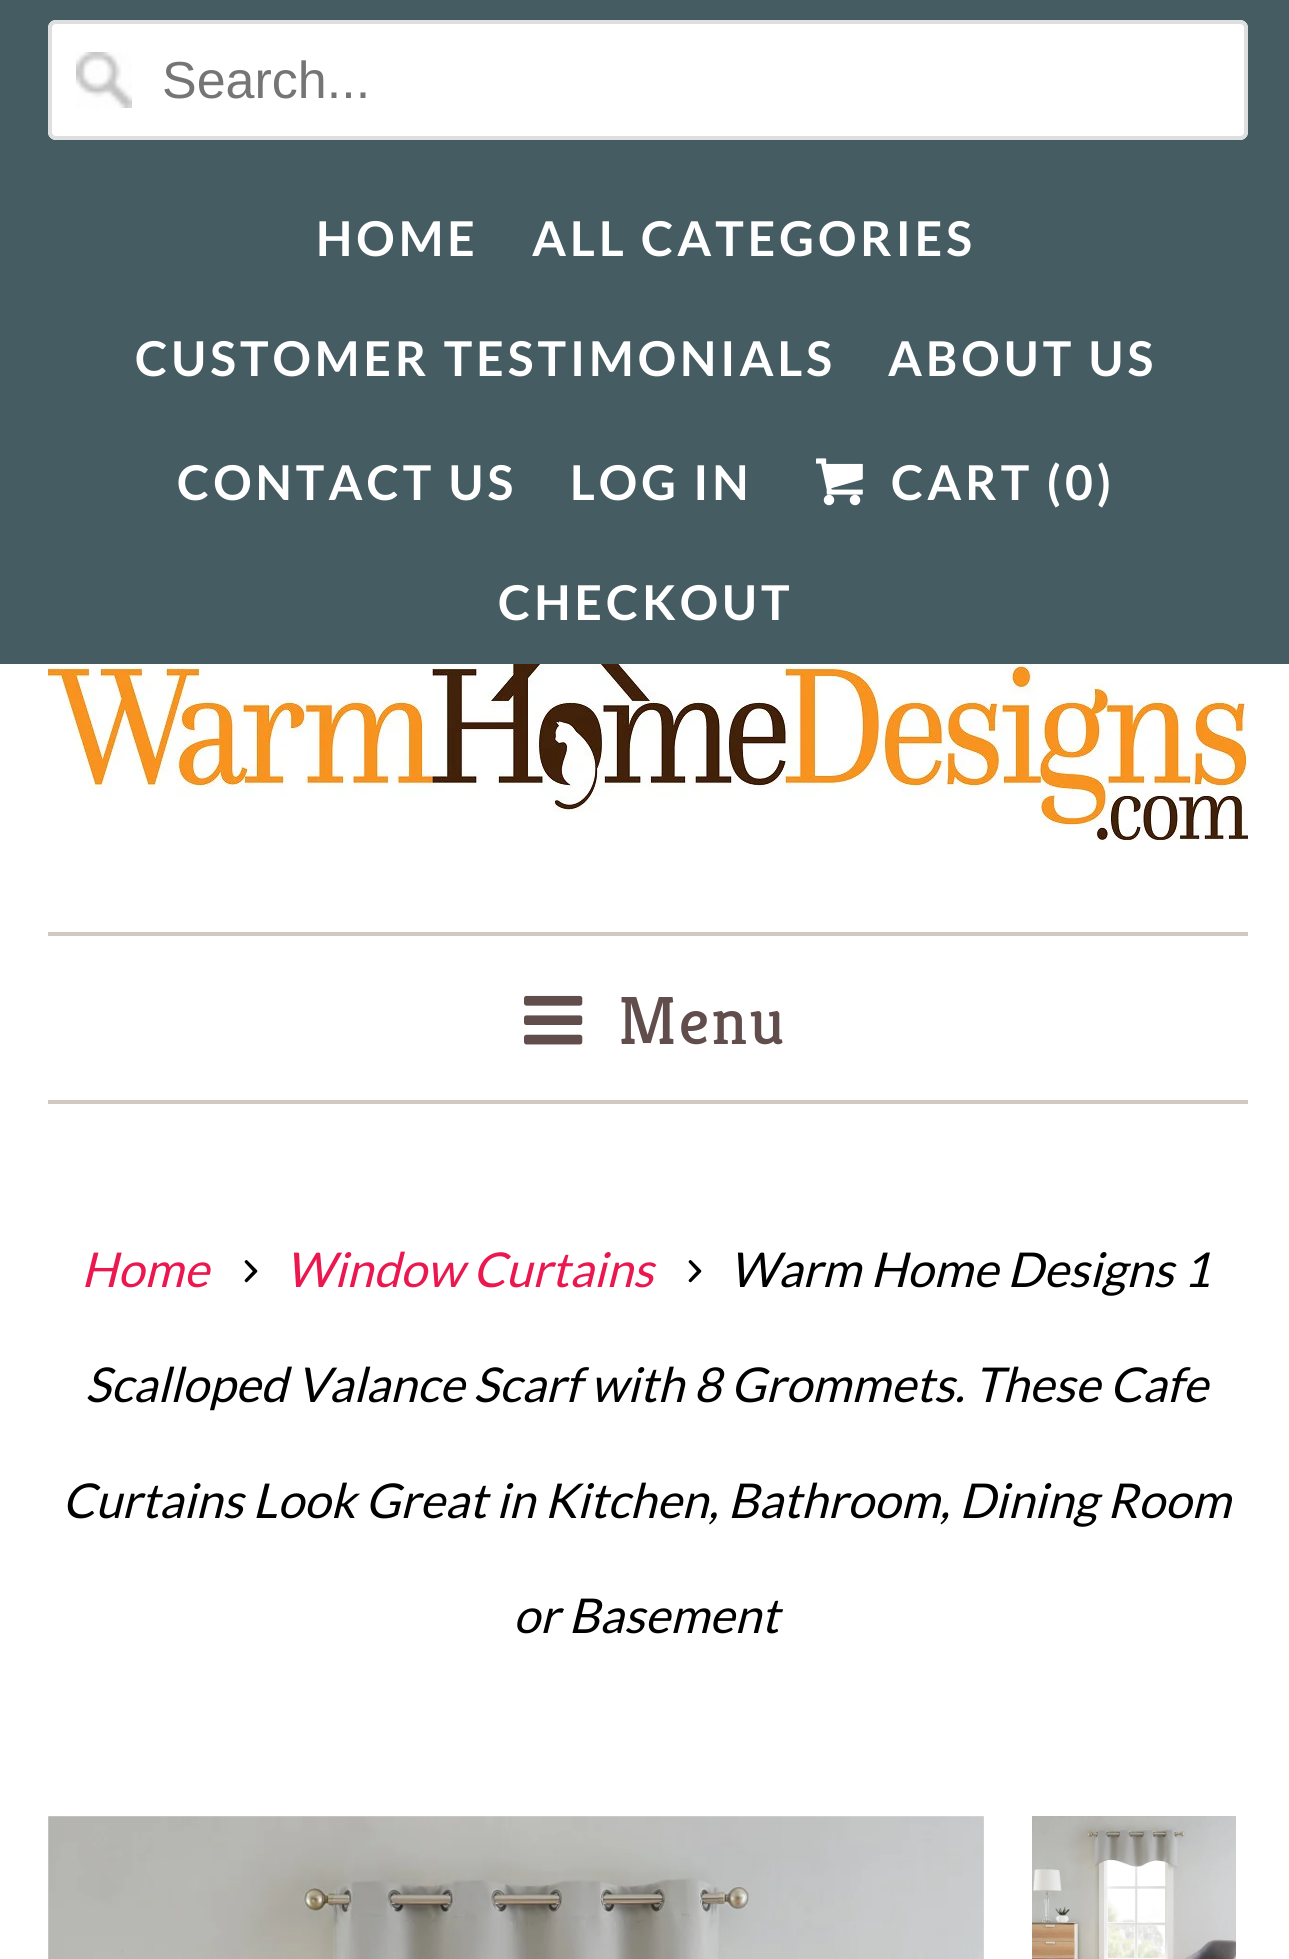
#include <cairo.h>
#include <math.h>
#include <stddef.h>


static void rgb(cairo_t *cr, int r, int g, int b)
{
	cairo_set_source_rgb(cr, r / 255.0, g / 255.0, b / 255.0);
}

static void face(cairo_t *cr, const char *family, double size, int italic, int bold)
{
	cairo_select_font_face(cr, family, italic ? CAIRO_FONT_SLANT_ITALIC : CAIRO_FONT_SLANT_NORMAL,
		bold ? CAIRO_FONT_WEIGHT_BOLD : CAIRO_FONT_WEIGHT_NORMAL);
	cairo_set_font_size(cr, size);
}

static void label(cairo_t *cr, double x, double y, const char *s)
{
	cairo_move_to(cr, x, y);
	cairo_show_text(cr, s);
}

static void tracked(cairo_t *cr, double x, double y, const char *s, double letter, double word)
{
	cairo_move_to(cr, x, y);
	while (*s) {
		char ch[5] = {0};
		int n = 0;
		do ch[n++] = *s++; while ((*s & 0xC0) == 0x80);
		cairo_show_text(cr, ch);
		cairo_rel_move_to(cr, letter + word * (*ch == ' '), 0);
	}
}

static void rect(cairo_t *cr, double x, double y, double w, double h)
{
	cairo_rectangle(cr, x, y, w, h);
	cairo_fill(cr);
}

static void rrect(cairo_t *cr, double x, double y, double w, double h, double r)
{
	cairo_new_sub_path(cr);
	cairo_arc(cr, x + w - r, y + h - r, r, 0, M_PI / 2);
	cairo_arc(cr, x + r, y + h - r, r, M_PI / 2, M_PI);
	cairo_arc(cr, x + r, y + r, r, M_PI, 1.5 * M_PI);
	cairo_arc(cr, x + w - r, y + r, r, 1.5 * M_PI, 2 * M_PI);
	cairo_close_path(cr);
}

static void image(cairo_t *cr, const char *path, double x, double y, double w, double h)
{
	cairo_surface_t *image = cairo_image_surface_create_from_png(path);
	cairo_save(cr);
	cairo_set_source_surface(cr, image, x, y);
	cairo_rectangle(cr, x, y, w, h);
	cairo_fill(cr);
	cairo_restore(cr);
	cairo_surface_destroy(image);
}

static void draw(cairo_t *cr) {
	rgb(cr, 255, 255, 255);
	cairo_paint(cr);
	rgb(cr, 69, 92, 99);
	rect(cr, 0, 0, 1289, 664);
	rgb(cr, 255, 255, 255);
	rrect(cr, 48, 20, 1200, 120, 8);
	cairo_fill(cr);
	image(cr, "image0.png", 76, 52, 56, 56);
	rrect(cr, 50, 22, 1196, 116, 6);
	rgb(cr, 223, 223, 223);
	cairo_set_line_width(cr, 4);
	cairo_stroke(cr);
	face(cr, "Liberation Sans", 52, 0, 0);
	rgb(cr, 117, 117, 117);
	label(cr, 162, 98, "Search...");
	face(cr, "Lato", 48, 0, 1);
	rgb(cr, 255, 255, 255);
	tracked(cr, 316, 256, "HOME", 4, 0);
	tracked(cr, 532, 256, "ALL CATEGORIES", 4, 0);
	tracked(cr, 135, 376, "CUSTOMER TESTIMONIALS", 4, 0);
	tracked(cr, 888, 376, "ABOUT US", 4, 0);
	tracked(cr, 177, 500, "CONTACT US", 4, 0);
	tracked(cr, 570, 500, "LOG IN", 4, 0);
	image(cr, "image1.png", 816, 458, 47, 48);
	tracked(cr, 891, 500, "CART (0)", 4, 0);
	tracked(cr, 498, 620, "CHECKOUT", 4, 0);
	image(cr, "image2.png", 48, 664, 1200, 176);
	rgb(cr, 209, 200, 191);
	rect(cr, 48, 932, 1200, 4);
	rect(cr, 48, 1100, 1200, 4);
	image(cr, "image3.png", 524, 995, 59, 50);
	face(cr, "Kreon", 68, 0, 0);
	rgb(cr, 97, 77, 75);
	tracked(cr, 618, 1044, "Menu", 2, 0);
	face(cr, "Lato", 48, 1, 0);
	rgb(cr, 235, 23, 79);
	label(cr, 81, 1287, "Home");
	image(cr, "image4.png", 244, 1260, 14, 23);
	label(cr, 285, 1287, "Window Curtains");
	image(cr, "image4.png", 688, 1260, 14, 23);
	rgb(cr, 0, 0, 0);
	label(cr, 729, 1287, "Warm Home Designs 1");
	label(cr, 85, 1402, "Scalloped Valance Scarf with 8 Grommets. These Cafe");
	label(cr, 62, 1518, "Curtains Look Great in Kitchen, Bathroom, Dining Room");
	label(cr, 513, 1633, "or Basement");
	image(cr, "image5.png", 48, 1816, 936, 143);
	image(cr, "image6.png", 1032, 1816, 204, 143);
}

int main(void) {
	cairo_surface_t *surface = cairo_image_surface_create(CAIRO_FORMAT_RGB24, 1289, 1959);
	cairo_t *cr = cairo_create(surface);
	cairo_font_options_t *options = cairo_font_options_create();
	cairo_font_options_set_hint_metrics(options, CAIRO_HINT_METRICS_OFF);
	cairo_font_options_set_hint_style(options, CAIRO_HINT_STYLE_NONE);
	cairo_set_font_options(cr, options);
	cairo_set_miter_limit(cr, 4);
	draw(cr);
	cairo_surface_write_to_png(surface, "render.png");
	cairo_font_options_destroy(options);
	cairo_destroy(cr);
	cairo_surface_destroy(surface);
	return 0;
}
